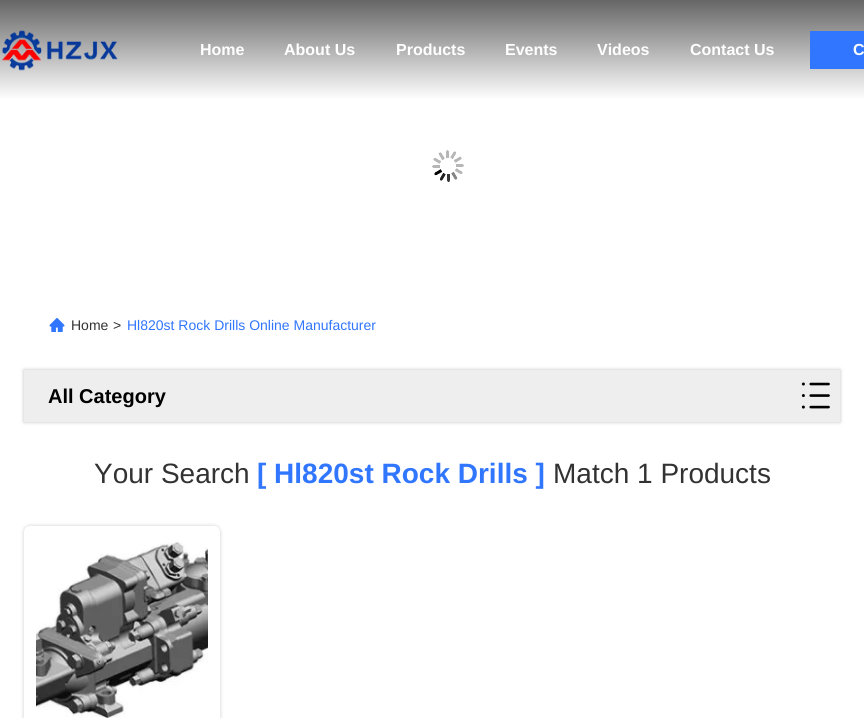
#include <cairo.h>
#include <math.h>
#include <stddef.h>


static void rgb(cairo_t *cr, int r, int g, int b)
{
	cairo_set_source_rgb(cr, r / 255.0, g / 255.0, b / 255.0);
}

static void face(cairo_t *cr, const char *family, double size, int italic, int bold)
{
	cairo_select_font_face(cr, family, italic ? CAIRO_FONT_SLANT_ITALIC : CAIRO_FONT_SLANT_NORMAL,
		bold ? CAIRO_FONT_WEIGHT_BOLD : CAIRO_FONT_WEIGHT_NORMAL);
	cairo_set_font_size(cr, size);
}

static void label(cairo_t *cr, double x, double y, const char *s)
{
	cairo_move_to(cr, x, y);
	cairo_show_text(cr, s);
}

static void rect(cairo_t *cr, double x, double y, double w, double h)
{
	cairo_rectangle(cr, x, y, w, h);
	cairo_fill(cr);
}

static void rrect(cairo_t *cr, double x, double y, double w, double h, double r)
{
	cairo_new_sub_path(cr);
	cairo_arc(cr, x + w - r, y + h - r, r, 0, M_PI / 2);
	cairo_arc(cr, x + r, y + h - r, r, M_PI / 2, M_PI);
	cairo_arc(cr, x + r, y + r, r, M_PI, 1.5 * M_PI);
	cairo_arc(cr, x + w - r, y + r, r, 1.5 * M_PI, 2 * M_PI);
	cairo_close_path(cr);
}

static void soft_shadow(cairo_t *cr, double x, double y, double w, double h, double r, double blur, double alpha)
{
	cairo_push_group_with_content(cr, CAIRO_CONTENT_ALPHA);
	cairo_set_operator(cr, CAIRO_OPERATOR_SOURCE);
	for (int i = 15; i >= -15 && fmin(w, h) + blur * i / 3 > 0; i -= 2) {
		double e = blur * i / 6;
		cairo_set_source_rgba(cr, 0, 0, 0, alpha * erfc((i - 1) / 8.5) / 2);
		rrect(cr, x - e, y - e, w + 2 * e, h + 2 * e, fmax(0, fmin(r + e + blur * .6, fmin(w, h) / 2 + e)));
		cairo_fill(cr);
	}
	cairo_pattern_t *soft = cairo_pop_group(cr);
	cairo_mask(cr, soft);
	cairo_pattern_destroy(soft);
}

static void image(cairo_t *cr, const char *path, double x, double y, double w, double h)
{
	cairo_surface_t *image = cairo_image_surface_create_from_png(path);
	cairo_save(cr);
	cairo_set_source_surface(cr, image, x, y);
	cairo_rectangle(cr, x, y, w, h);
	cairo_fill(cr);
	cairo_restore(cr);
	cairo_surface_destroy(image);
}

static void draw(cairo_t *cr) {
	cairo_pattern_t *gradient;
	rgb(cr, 255, 255, 255);
	cairo_paint(cr);
	gradient = cairo_pattern_create_linear(432, 0, 432, 100);
	cairo_pattern_add_color_stop_rgba(gradient, 0, 0.4, 0.4, 0.4, 1);
	cairo_pattern_add_color_stop_rgba(gradient, 1, 1, 1, 1, 1);
	cairo_set_source(cr, gradient);
	cairo_pattern_destroy(gradient);
	rect(cr, 0, 0, 864, 98);
	image(cr, "image0.png", 1, 30, 117, 41);
	face(cr, "Liberation Sans", 16, 0, 1);
	rgb(cr, 255, 255, 255);
	label(cr, 200, 55, "Home");
	label(cr, 284, 55, "About Us");
	label(cr, 396, 55, "Products");
	label(cr, 505, 55, "Events");
	label(cr, 597, 55, "Videos");
	label(cr, 690, 55, "Contact Us");
	rgb(cr, 49, 118, 255);
	rect(cr, 810, 31, 54, 38);
	rgb(cr, 255, 255, 255);
	label(cr, 853, 55, "C");
	image(cr, "image1.png", 432, 150, 32, 32);
	image(cr, "image2.png", 49, 317, 16, 15);
	face(cr, "Liberation Sans", 14, 0, 0);
	rgb(cr, 50, 50, 50);
	label(cr, 71, 330, "Home");
	label(cr, 113, 330, ">");
	rgb(cr, 49, 118, 255);
	label(cr, 127, 330, "Hl820st Rock Drills Online Manufacturer");
	rgb(cr, 0, 0, 0);
	soft_shadow(cr, 24, 370, 816, 52, 0, 2, 0.25);
	rgb(cr, 238, 238, 238);
	rect(cr, 24, 370, 816, 52);
	face(cr, "Liberation Sans", 20, 0, 1);
	rgb(cr, 0, 0, 0);
	label(cr, 48, 403, "All Category");
	image(cr, "image3.png", 801, 382, 29, 27);
	face(cr, "Liberation Sans", 28, 0, 0);
	rgb(cr, 50, 50, 50);
	label(cr, 94, 483, "Your Search");
	face(cr, "Liberation Sans", 28, 0, 1);
	rgb(cr, 49, 118, 255);
	label(cr, 257, 483, "[ Hl820st Rock Drills ]");
	face(cr, "Liberation Sans", 28, 0, 0);
	rgb(cr, 50, 50, 50);
	label(cr, 553, 483, "Match 1 Products");
	rgb(cr, 0, 0, 0);
	soft_shadow(cr, 24, 526, 196, 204, 6, 2, 0.2);
	rgb(cr, 255, 255, 255);
	rrect(cr, 24, 526, 196, 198, 6);
	cairo_fill(cr);
	image(cr, "image4.png", 36, 541, 172, 177);
}

int main(void) {
	cairo_surface_t *surface = cairo_image_surface_create(CAIRO_FORMAT_RGB24, 864, 718);
	cairo_t *cr = cairo_create(surface);
	cairo_font_options_t *options = cairo_font_options_create();
	cairo_font_options_set_hint_metrics(options, CAIRO_HINT_METRICS_OFF);
	cairo_font_options_set_hint_style(options, CAIRO_HINT_STYLE_NONE);
	cairo_set_font_options(cr, options);
	cairo_set_miter_limit(cr, 4);
	draw(cr);
	cairo_surface_write_to_png(surface, "render.png");
	cairo_font_options_destroy(options);
	cairo_destroy(cr);
	cairo_surface_destroy(surface);
	return 0;
}
